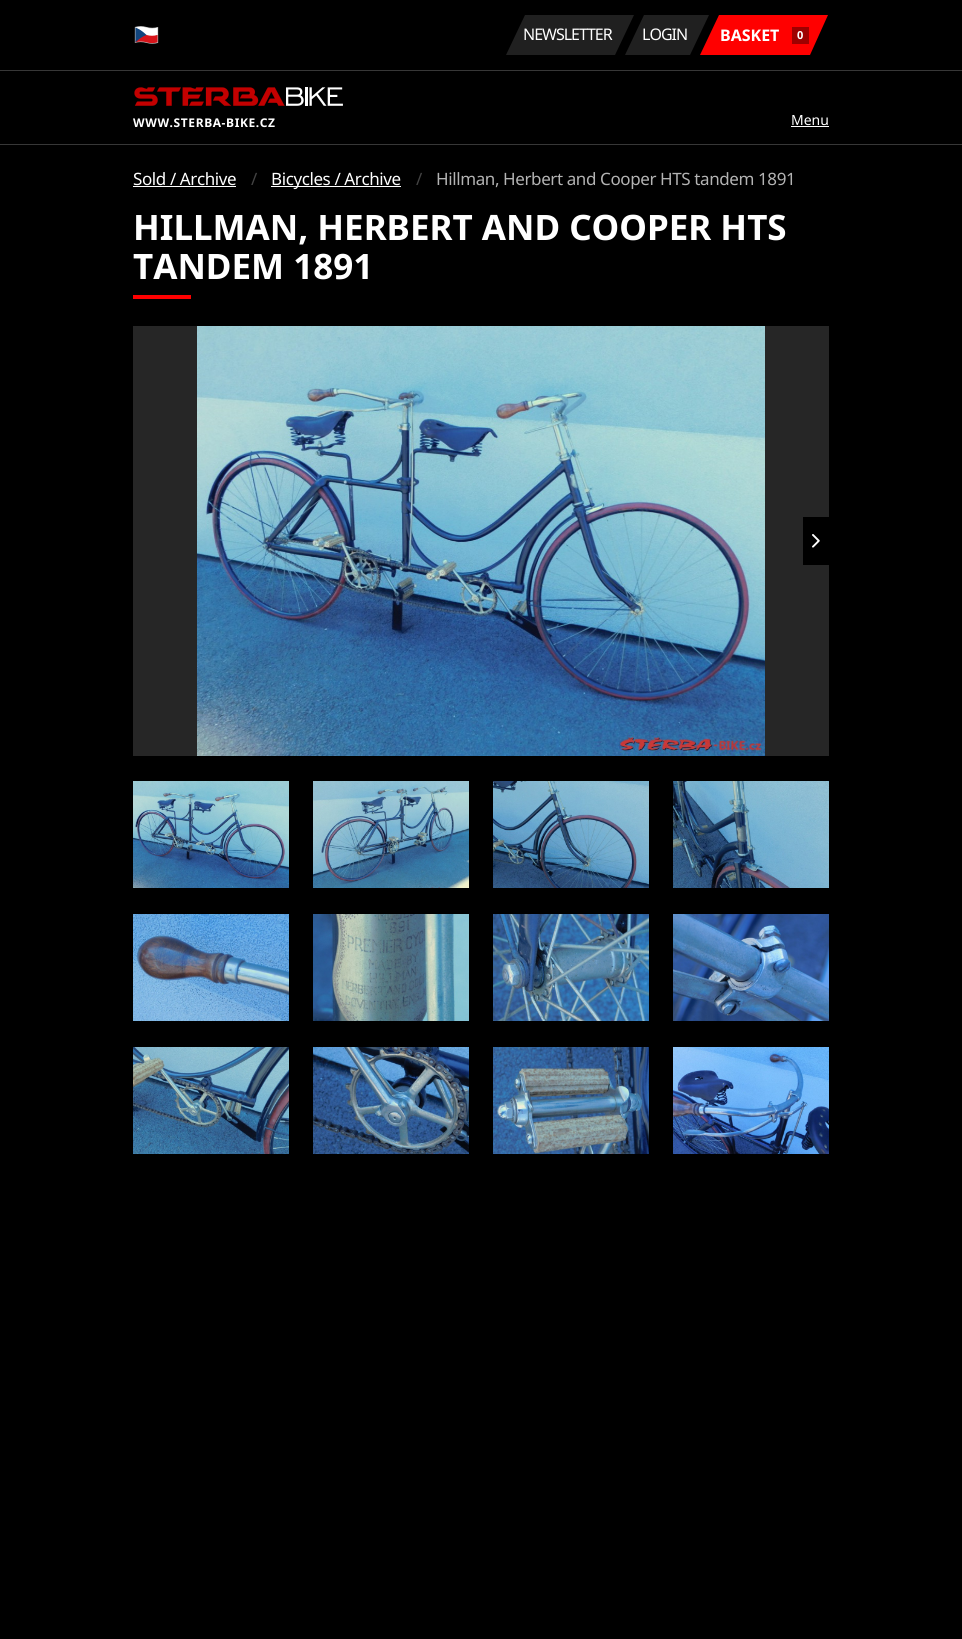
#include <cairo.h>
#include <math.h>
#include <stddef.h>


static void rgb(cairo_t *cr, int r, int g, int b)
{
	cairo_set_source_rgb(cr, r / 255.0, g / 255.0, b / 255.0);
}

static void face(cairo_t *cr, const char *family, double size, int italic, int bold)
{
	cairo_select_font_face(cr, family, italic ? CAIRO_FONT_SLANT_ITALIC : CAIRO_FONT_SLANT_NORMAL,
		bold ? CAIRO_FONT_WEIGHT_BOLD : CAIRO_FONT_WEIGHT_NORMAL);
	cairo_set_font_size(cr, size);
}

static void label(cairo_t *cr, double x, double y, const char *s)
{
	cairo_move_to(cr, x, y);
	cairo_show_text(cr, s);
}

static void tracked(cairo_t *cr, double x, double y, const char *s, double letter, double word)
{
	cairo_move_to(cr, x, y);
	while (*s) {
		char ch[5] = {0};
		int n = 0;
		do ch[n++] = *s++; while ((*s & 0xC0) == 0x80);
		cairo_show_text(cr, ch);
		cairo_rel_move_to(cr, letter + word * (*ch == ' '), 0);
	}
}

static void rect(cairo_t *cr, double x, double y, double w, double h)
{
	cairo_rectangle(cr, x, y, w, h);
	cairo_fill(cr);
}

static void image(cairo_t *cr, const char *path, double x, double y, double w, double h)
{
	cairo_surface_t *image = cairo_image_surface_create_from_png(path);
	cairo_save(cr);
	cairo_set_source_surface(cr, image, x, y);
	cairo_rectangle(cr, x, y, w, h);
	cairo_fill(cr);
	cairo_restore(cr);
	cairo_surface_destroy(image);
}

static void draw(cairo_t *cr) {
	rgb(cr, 0, 0, 0);
	cairo_paint(cr);
	rgb(cr, 55, 55, 55);
	rect(cr, 0, 144, 962, 1);
	image(cr, "image0.png", 134, 26, 25, 18);
	rgb(cr, 32, 32, 32);
	cairo_new_path(cr);
	cairo_move_to(cr, 525, 15);
	cairo_line_to(cr, 634, 15);
	cairo_line_to(cr, 615, 55);
	cairo_line_to(cr, 506, 55);
	cairo_close_path(cr);
	cairo_fill(cr);
	face(cr, "Noto Sans", 16, 0, 0);
	rgb(cr, 255, 255, 255);
	tracked(cr, 523, 40, "NEWSLETTER", -1, 0);
	rgb(cr, 32, 32, 32);
	cairo_new_path(cr);
	cairo_move_to(cr, 644, 15);
	cairo_line_to(cr, 709, 15);
	cairo_line_to(cr, 690, 55);
	cairo_line_to(cr, 625, 55);
	cairo_close_path(cr);
	cairo_fill(cr);
	rgb(cr, 255, 255, 255);
	tracked(cr, 642, 40, "LOGIN", -1, 0);
	rgb(cr, 255, 0, 0);
	cairo_new_path(cr);
	cairo_move_to(cr, 719, 15);
	cairo_line_to(cr, 828, 15);
	cairo_line_to(cr, 810, 55);
	cairo_line_to(cr, 700, 55);
	cairo_close_path(cr);
	cairo_fill(cr);
	face(cr, "Noto Sans", 16, 0, 1);
	rgb(cr, 255, 255, 255);
	label(cr, 720, 41, "BASKET");
	rgb(cr, 158, 0, 0);
	rect(cr, 792, 27, 17, 17);
	face(cr, "Noto Sans", 11, 0, 1);
	rgb(cr, 255, 255, 255);
	label(cr, 797, 39, "0");
	rgb(cr, 55, 55, 55);
	rect(cr, 0, 70, 962, 1);
	image(cr, "image1.png", 134, 87, 209, 19);
	face(cr, "Noto Sans", 12, 0, 1);
	rgb(cr, 255, 255, 255);
	tracked(cr, 133, 127, "WWW.STERBA-BIKE.CZ", 0.6, 0);
	face(cr, "Noto Sans", 14, 0, 0);
	label(cr, 791, 125, "Menu");
	rect(cr, 791, 126, 38, 1);
	face(cr, "Noto Sans", 17, 0, 0);
	tracked(cr, 133, 185, "Sold / Archive", -0.4, 0);
	rect(cr, 133, 186, 103, 1);
	rgb(cr, 67, 67, 67);
	tracked(cr, 251, 185, "/", -0.4, 0);
	rgb(cr, 255, 255, 255);
	rect(cr, 271, 186, 130, 1);
	tracked(cr, 271, 185, "Bicycles / Archive", -0.4, 0);
	rgb(cr, 67, 67, 67);
	tracked(cr, 416, 185, "/", -0.4, 0);
	rgb(cr, 179, 179, 179);
	tracked(cr, 436, 185, "Hillman, Herbert and Cooper HTS tandem 1891", -0.4, 0);
	face(cr, "Noto Sans", 35, 0, 1);
	rgb(cr, 255, 255, 255);
	label(cr, 133, 240, "HILLMAN, HERBERT AND COOPER HTS");
	label(cr, 133, 279, "TANDEM 1891");
	rgb(cr, 255, 0, 0);
	rect(cr, 133, 295, 58, 4);
	rgb(cr, 38, 38, 38);
	rect(cr, 133, 326, 696, 430);
	image(cr, "image2.png", 197, 326, 568, 430);
	rgb(cr, 0, 0, 0);
	rect(cr, 803, 517, 26, 48);
	image(cr, "image3.png", 812, 534, 8, 14);
	image(cr, "image4.png", 133, 781, 156, 107);
	image(cr, "image5.png", 313, 781, 156, 107);
	image(cr, "image6.png", 493, 781, 156, 107);
	image(cr, "image7.png", 673, 781, 156, 107);
	image(cr, "image8.png", 133, 914, 156, 107);
	image(cr, "image9.png", 313, 914, 156, 107);
	image(cr, "image10.png", 493, 914, 156, 107);
	image(cr, "image11.png", 673, 914, 156, 107);
	image(cr, "image12.png", 133, 1047, 156, 107);
	image(cr, "image13.png", 313, 1047, 156, 107);
	image(cr, "image14.png", 493, 1047, 156, 107);
	image(cr, "image15.png", 673, 1047, 156, 107);
}

int main(void) {
	cairo_surface_t *surface = cairo_image_surface_create(CAIRO_FORMAT_RGB24, 962, 1639);
	cairo_t *cr = cairo_create(surface);
	cairo_font_options_t *options = cairo_font_options_create();
	cairo_font_options_set_hint_metrics(options, CAIRO_HINT_METRICS_OFF);
	cairo_font_options_set_hint_style(options, CAIRO_HINT_STYLE_NONE);
	cairo_set_font_options(cr, options);
	cairo_set_miter_limit(cr, 4);
	draw(cr);
	cairo_surface_write_to_png(surface, "render.png");
	cairo_font_options_destroy(options);
	cairo_destroy(cr);
	cairo_surface_destroy(surface);
	return 0;
}
